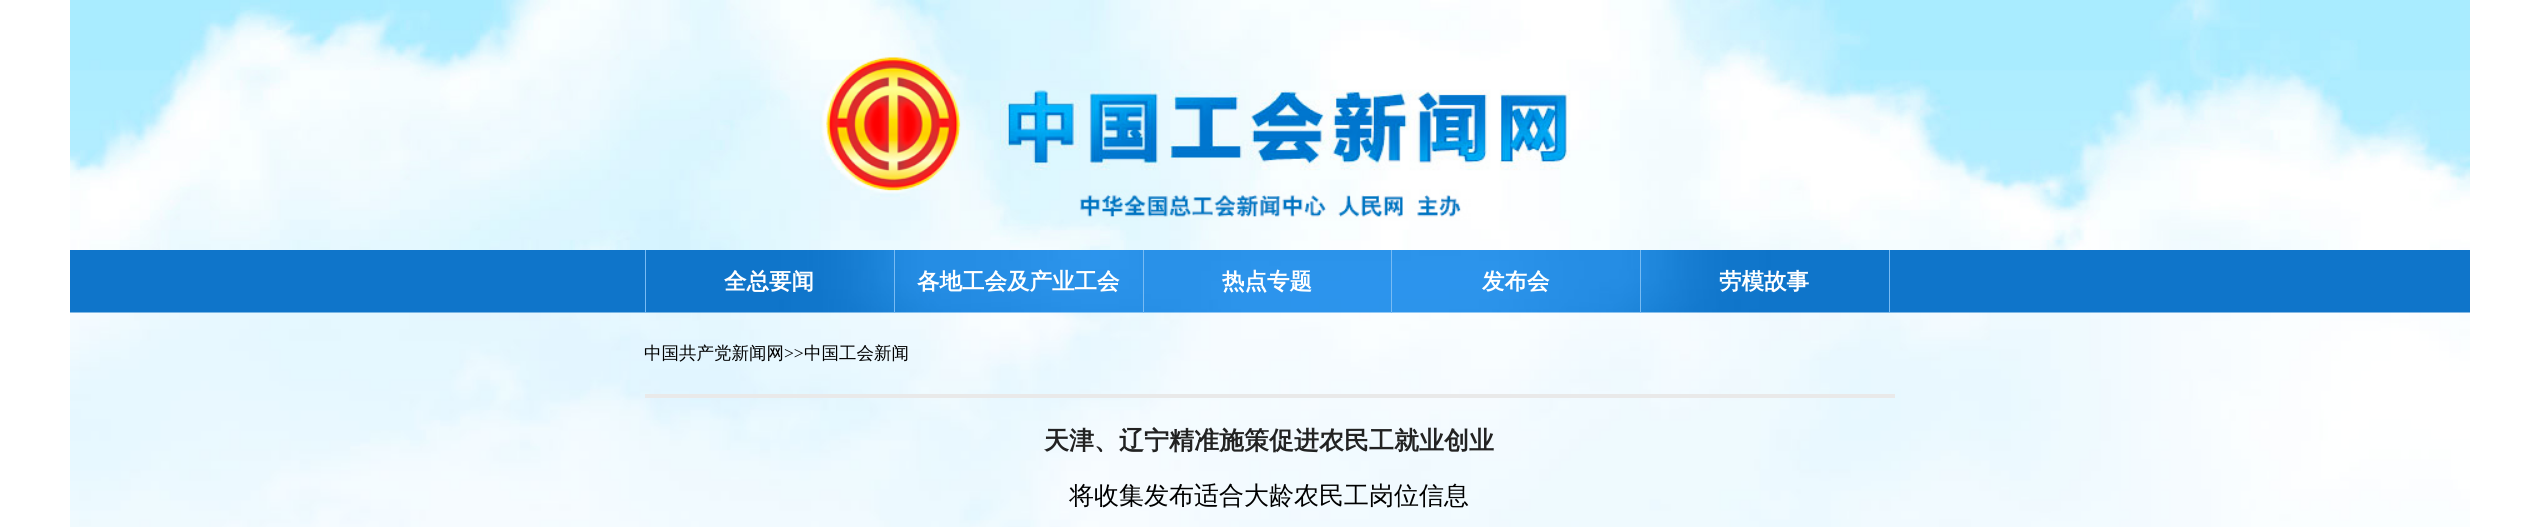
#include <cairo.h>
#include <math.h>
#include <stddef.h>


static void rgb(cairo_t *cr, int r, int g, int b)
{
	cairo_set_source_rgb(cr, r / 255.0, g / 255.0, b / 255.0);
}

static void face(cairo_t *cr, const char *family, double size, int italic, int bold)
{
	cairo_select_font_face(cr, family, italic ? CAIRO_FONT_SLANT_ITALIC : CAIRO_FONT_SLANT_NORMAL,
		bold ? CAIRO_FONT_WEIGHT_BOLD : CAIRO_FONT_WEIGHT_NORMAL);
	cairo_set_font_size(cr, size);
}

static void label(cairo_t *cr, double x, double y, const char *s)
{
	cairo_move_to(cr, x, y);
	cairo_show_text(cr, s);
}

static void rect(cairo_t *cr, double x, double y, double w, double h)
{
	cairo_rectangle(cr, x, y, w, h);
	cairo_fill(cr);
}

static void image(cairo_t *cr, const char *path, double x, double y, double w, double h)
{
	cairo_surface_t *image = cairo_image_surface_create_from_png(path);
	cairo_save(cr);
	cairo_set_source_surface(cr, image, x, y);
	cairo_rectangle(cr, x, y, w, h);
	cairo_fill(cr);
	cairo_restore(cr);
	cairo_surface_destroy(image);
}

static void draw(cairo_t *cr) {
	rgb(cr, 255, 255, 255);
	cairo_paint(cr);
	image(cr, "image0.png", 70, 312, 2400, 215);
	image(cr, "image1.png", 70, 0, 2400, 250);
	image(cr, "image2.png", 70, 250, 2400, 63);
	rgb(cr, 120, 187, 243);
	rect(cr, 645, 250, 1, 63);
	rect(cr, 894, 250, 1, 63);
	face(cr, "WenQuanYi Zen Hei", 22.5, 0, 1);
	rgb(cr, 255, 255, 255);
	label(cr, 724, 289, "全总要闻");
	rgb(cr, 120, 187, 243);
	rect(cr, 1143, 250, 1, 63);
	rgb(cr, 255, 255, 255);
	label(cr, 917, 289, "各地工会及产业工会");
	rgb(cr, 120, 187, 243);
	rect(cr, 1391, 250, 1, 63);
	rgb(cr, 255, 255, 255);
	label(cr, 1222, 289, "热点专题");
	rgb(cr, 120, 187, 243);
	rect(cr, 1640, 250, 1, 63);
	rgb(cr, 255, 255, 255);
	label(cr, 1482, 289, "发布会");
	rgb(cr, 120, 187, 243);
	rect(cr, 1889, 250, 1, 63);
	rgb(cr, 255, 255, 255);
	label(cr, 1719, 289, "劳模故事");
	face(cr, "WenQuanYi Zen Hei Medium", 17.5, 0, 0);
	rgb(cr, 0, 0, 0);
	label(cr, 644, 359, "中国共产党新闻网");
	face(cr, "Liberation Serif", 17.5, 0, 0);
	label(cr, 784, 359, ">>");
	face(cr, "WenQuanYi Zen Hei Medium", 17.5, 0, 0);
	label(cr, 804, 359, "中国工会新闻");
	rgb(cr, 233, 233, 233);
	rect(cr, 645, 394, 1250, 4);
	face(cr, "WenQuanYi Zen Hei", 25, 0, 1);
	rgb(cr, 34, 34, 34);
	label(cr, 1044, 449, "天津、辽宁精准施策促进农民工就业创业");
	face(cr, "WenQuanYi Zen Hei Medium", 25, 0, 0);
	rgb(cr, 0, 0, 0);
	label(cr, 1069, 504, "将收集发布适合大龄农民工岗位信息");
}

int main(void) {
	cairo_surface_t *surface = cairo_image_surface_create(CAIRO_FORMAT_RGB24, 2538, 527);
	cairo_t *cr = cairo_create(surface);
	cairo_font_options_t *options = cairo_font_options_create();
	cairo_font_options_set_hint_metrics(options, CAIRO_HINT_METRICS_OFF);
	cairo_font_options_set_hint_style(options, CAIRO_HINT_STYLE_NONE);
	cairo_set_font_options(cr, options);
	cairo_set_miter_limit(cr, 4);
	draw(cr);
	cairo_surface_write_to_png(surface, "render.png");
	cairo_font_options_destroy(options);
	cairo_destroy(cr);
	cairo_surface_destroy(surface);
	return 0;
}
